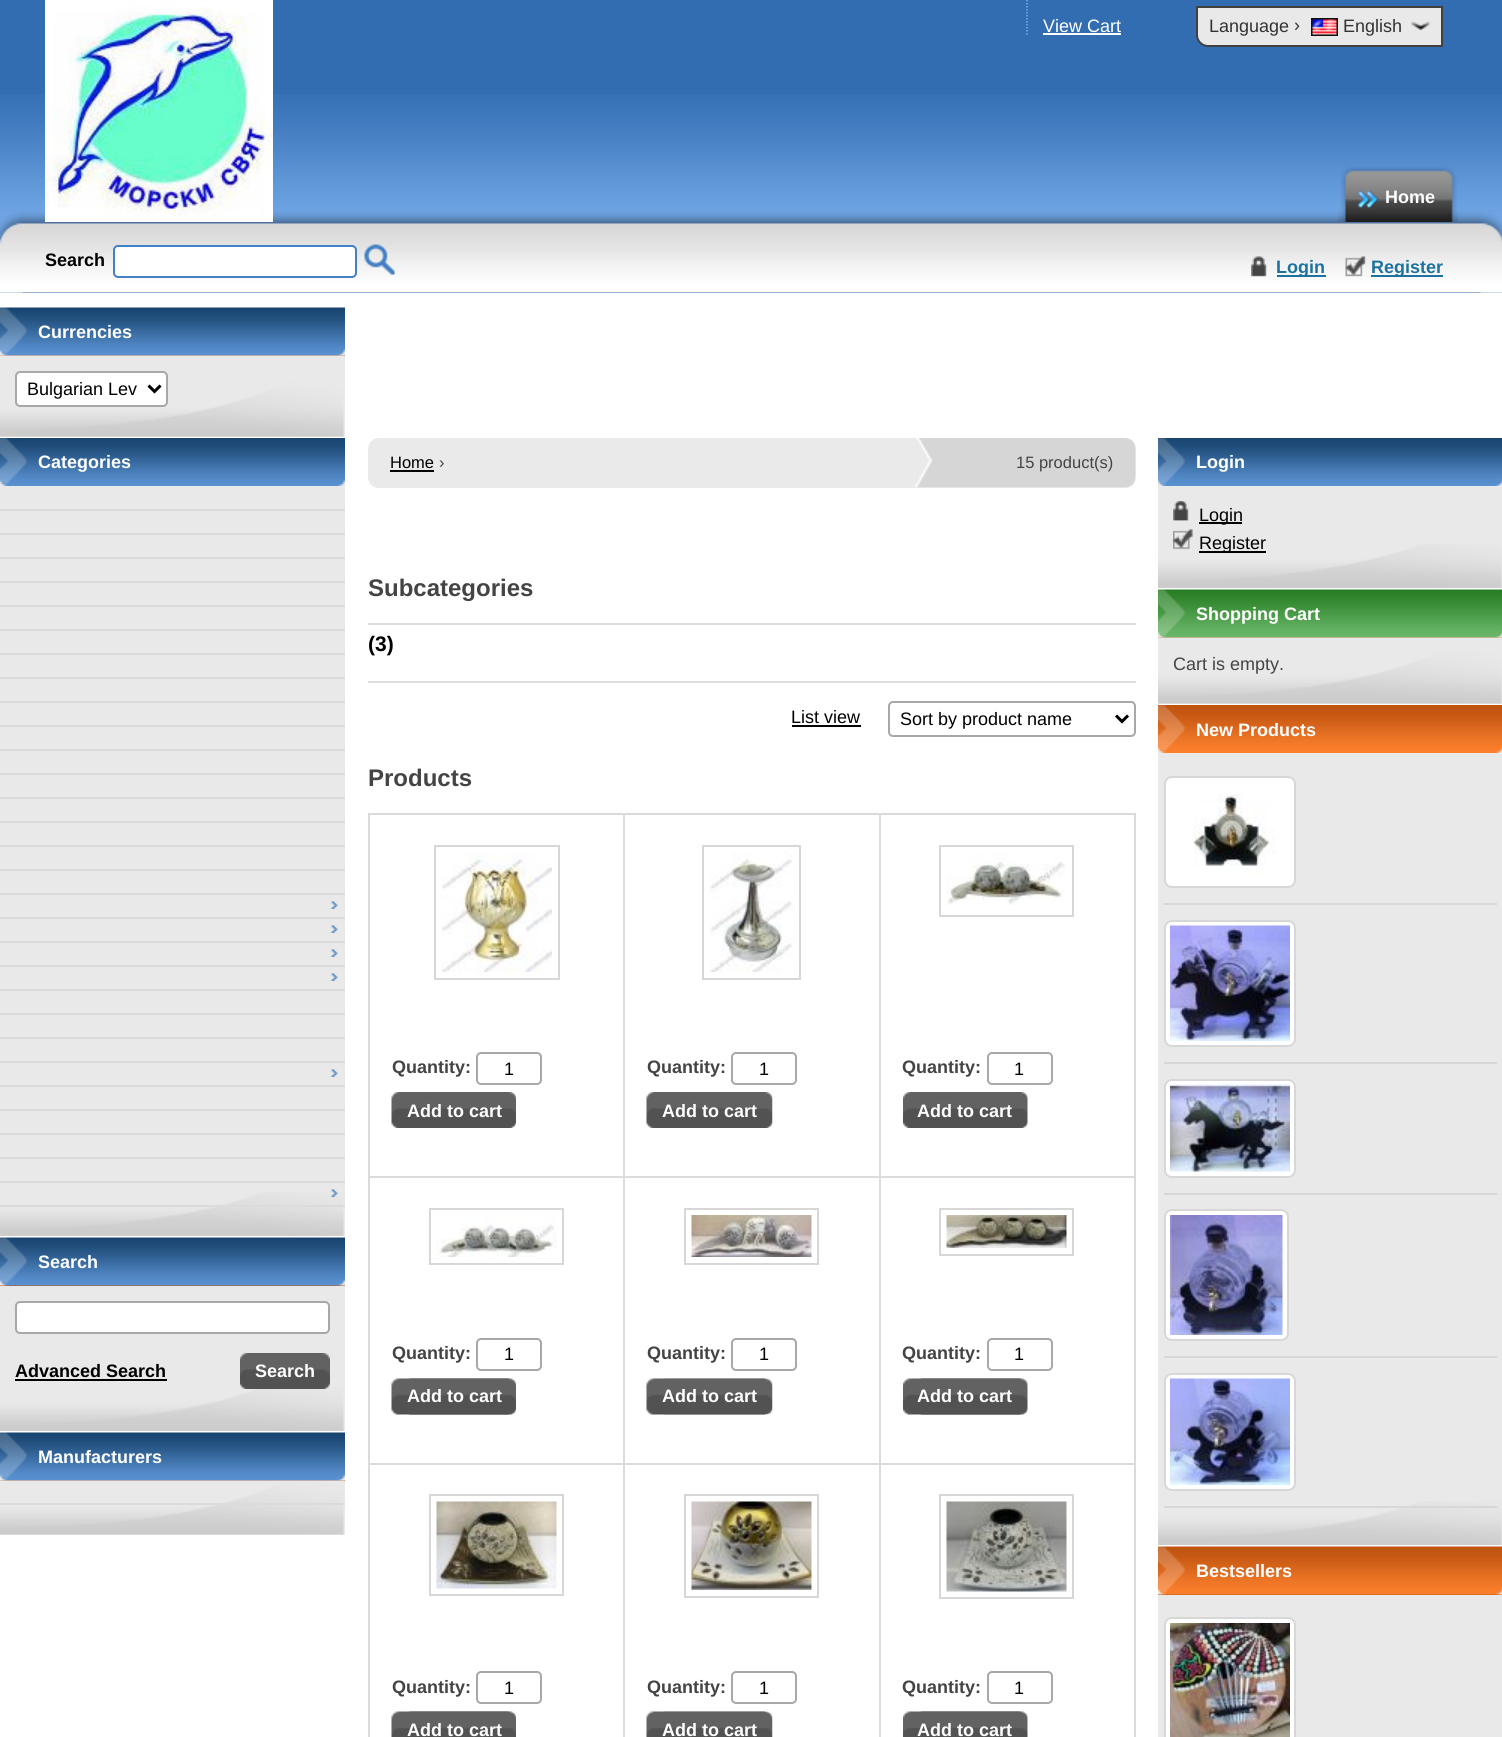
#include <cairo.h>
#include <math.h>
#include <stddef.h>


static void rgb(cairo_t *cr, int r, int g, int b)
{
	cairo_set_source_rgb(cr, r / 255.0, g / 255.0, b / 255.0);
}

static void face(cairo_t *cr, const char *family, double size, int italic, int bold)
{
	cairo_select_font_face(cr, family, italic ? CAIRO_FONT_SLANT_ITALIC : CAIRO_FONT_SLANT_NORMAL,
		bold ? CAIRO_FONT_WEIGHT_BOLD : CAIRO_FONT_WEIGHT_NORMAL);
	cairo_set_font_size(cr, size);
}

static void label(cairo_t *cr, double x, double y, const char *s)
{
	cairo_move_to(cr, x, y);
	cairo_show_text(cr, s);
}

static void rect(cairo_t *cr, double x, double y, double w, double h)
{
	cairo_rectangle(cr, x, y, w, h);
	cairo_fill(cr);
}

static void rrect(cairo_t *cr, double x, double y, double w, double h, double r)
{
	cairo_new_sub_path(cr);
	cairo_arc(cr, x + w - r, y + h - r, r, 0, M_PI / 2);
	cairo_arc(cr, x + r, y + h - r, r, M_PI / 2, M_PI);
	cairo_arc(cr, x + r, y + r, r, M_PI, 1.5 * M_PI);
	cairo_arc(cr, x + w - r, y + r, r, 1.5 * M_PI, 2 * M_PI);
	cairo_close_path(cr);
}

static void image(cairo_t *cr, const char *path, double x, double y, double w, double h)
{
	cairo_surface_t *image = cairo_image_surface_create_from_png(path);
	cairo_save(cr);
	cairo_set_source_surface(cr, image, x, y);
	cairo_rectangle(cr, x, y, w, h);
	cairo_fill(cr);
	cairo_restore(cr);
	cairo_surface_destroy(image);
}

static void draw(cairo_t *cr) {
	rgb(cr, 255, 255, 255);
	cairo_paint(cr);
	rgb(cr, 50, 109, 178);
	rect(cr, 0, 0, 1502, 293);
	image(cr, "image0.png", 0, 94, 1502, 199);
	image(cr, "image1.png", 0, 212, 23, 81);
	image(cr, "image2.png", 1480, 212, 22, 81);
	image(cr, "image3.png", 45, 0, 228, 222);
	cairo_new_path(cr);
	cairo_move_to(cr, 1027, 0);
	cairo_line_to(cr, 1027, 36);
	rgb(cr, 116, 173, 240);
	cairo_set_line_width(cr, 1.5);
	cairo_set_dash(cr, (double[]){1.5, 1.5}, 2, 0);
	cairo_stroke(cr);
	face(cr, "Liberation Sans", 18, 0, 0);
	rgb(cr, 255, 255, 255);
	label(cr, 1043, 32, "View Cart");
	rect(cr, 1043, 33, 78, 2);
	rgb(cr, 233, 233, 233);
	cairo_new_path(cr);
	cairo_move_to(cr, 1197, 7);
	cairo_line_to(cr, 1442, 7);
	cairo_line_to(cr, 1442, 46);
	cairo_line_to(cr, 1208, 46);
	cairo_curve_to(cr, 1202, 46, 1197, 41, 1197, 35);
	cairo_close_path(cr);
	cairo_fill_preserve(cr);
	rgb(cr, 64, 64, 64);
	cairo_set_line_width(cr, 2);
	cairo_set_dash(cr, NULL, 0, 0);
	cairo_stroke(cr);
	image(cr, "image4.png", 1411, 21, 19, 9);
	rgb(cr, 51, 51, 51);
	label(cr, 1209, 32, "Language");
	label(cr, 1294, 31, "›");
	image(cr, "image5.png", 1311, 18, 27, 18);
	label(cr, 1343, 32, "English");
	image(cr, "image6.png", 1338, 166, 41, 56);
	image(cr, "image7.png", 1378, 166, 80, 56);
	face(cr, "Liberation Sans", 18, 0, 1);
	rgb(cr, 255, 255, 255);
	label(cr, 1385, 203, "Home");
	rgb(cr, 0, 0, 0);
	label(cr, 45, 266, "Search");
	rgb(cr, 255, 255, 255);
	rrect(cr, 114, 246, 242, 31, 4);
	cairo_fill_preserve(cr);
	rgb(cr, 68, 128, 198);
	cairo_stroke(cr);
	image(cr, "image8.png", 364, 244, 31, 31);
	image(cr, "image9.png", 1251, 256, 16, 21);
	rgb(cr, 29, 115, 159);
	rect(cr, 1277, 275, 49, 2);
	label(cr, 1276, 273, "Login");
	image(cr, "image10.png", 1345, 256, 21, 21);
	rect(cr, 1371, 275, 72, 2);
	label(cr, 1371, 273, "Register");
	rgb(cr, 233, 233, 233);
	rect(cr, 0, 356, 345, 81);
	rgb(cr, 191, 83, 16);
	rect(cr, 0, 355, 345, 1);
	image(cr, "image11.png", 0, 307, 345, 49);
	rgb(cr, 255, 255, 255);
	label(cr, 38, 338, "Currencies");
	image(cr, "image12.png", 0, 355, 344, 82);
	rrect(cr, 16, 372, 151, 34, 4);
	cairo_fill_preserve(cr);
	rgb(cr, 168, 168, 168);
	cairo_stroke(cr);
	cairo_new_path(cr);
	cairo_move_to(cr, 148.5, 385.5);
	cairo_line_to(cr, 154.5, 391.5);
	cairo_line_to(cr, 160.5, 385.5);
	rgb(cr, 0, 0, 0);
	cairo_set_line_width(cr, 3);
	cairo_stroke(cr);
	face(cr, "Liberation Sans", 18, 0, 0);
	label(cr, 27, 395, "Bulgarian Lev");
	rgb(cr, 233, 233, 233);
	rect(cr, 0, 486, 345, 750);
	image(cr, "image13.png", 0, 438, 345, 48);
	face(cr, "Liberation Sans", 18, 0, 1);
	rgb(cr, 255, 255, 255);
	label(cr, 38, 468, "Categories");
	image(cr, "image14.png", 0, 1192, 344, 44);
	rgb(cr, 219, 219, 219);
	rect(cr, 0, 509, 345, 2);
	rect(cr, 0, 533, 345, 2);
	rect(cr, 0, 557, 345, 2);
	rect(cr, 0, 581, 345, 2);
	rect(cr, 0, 605, 345, 2);
	rect(cr, 0, 629, 345, 2);
	rect(cr, 0, 653, 345, 2);
	rect(cr, 0, 677, 345, 2);
	rect(cr, 0, 701, 345, 2);
	rect(cr, 0, 725, 345, 2);
	rect(cr, 0, 749, 345, 2);
	rect(cr, 0, 773, 345, 2);
	rect(cr, 0, 797, 345, 2);
	rect(cr, 0, 821, 345, 2);
	rect(cr, 0, 845, 345, 2);
	rect(cr, 0, 869, 345, 2);
	rect(cr, 0, 893, 345, 2);
	rect(cr, 0, 917, 345, 2);
	image(cr, "image15.png", 331, 901, 7, 8);
	rect(cr, 0, 941, 345, 2);
	image(cr, "image15.png", 331, 925, 7, 8);
	rect(cr, 0, 965, 345, 2);
	image(cr, "image15.png", 331, 949, 7, 8);
	rect(cr, 0, 989, 345, 2);
	image(cr, "image15.png", 331, 973, 7, 8);
	rect(cr, 0, 1013, 345, 2);
	rect(cr, 0, 1037, 345, 2);
	rect(cr, 0, 1061, 345, 2);
	rect(cr, 0, 1085, 345, 2);
	image(cr, "image15.png", 331, 1069, 7, 8);
	rect(cr, 0, 1109, 345, 2);
	rect(cr, 0, 1133, 345, 2);
	rect(cr, 0, 1157, 345, 2);
	rect(cr, 0, 1181, 345, 2);
	rect(cr, 0, 1205, 345, 2);
	image(cr, "image16.png", 331, 1189, 7, 8);
	rgb(cr, 233, 233, 233);
	rect(cr, 0, 1286, 345, 145);
	rgb(cr, 191, 83, 16);
	rect(cr, 0, 1285, 345, 1);
	image(cr, "image11.png", 0, 1237, 345, 49);
	rgb(cr, 255, 255, 255);
	label(cr, 38, 1268, "Search");
	image(cr, "image14.png", 0, 1387, 344, 44);
	rrect(cr, 16, 1302, 313, 31, 4);
	cairo_fill_preserve(cr);
	rgb(cr, 168, 168, 168);
	cairo_set_line_width(cr, 2);
	cairo_stroke(cr);
	rgb(cr, 0, 0, 0);
	label(cr, 15, 1377, "Advanced Search");
	rect(cr, 15, 1379, 152, 2);
	image(cr, "image17.png", 240, 1353, 83, 36);
	image(cr, "image18.png", 322, 1353, 8, 36);
	rgb(cr, 255, 255, 255);
	label(cr, 255, 1377, "Search");
	rgb(cr, 233, 233, 233);
	rect(cr, 0, 1481, 345, 54);
	rgb(cr, 191, 83, 16);
	rect(cr, 0, 1480, 345, 1);
	image(cr, "image11.png", 0, 1432, 345, 49);
	rgb(cr, 255, 255, 255);
	label(cr, 38, 1463, "Manufacturers");
	image(cr, "image19.png", 0, 1480, 344, 55);
	rgb(cr, 219, 219, 219);
	rect(cr, 0, 1503, 345, 2);
	rgb(cr, 234, 234, 234);
	rrect(cr, 368, 438, 768, 50, 11);
	cairo_fill(cr);
	image(cr, "image20.png", 915, 438, 221, 50);
	face(cr, "Liberation Sans", 16.5, 0, 0);
	rgb(cr, 0, 0, 0);
	label(cr, 390, 468, "Home");
	rect(cr, 390, 470, 44, 2);
	rgb(cr, 68, 68, 68);
	label(cr, 439, 468, "›");
	label(cr, 1016, 468, "15 product(s)");
	face(cr, "Liberation Sans", 24, 0, 1);
	label(cr, 368, 596, "Subcategories");
	rgb(cr, 221, 221, 221);
	rect(cr, 368, 681, 768, 2);
	rect(cr, 368, 623, 768, 2);
	face(cr, "Liberation Sans", 21, 0, 1);
	rgb(cr, 0, 0, 0);
	label(cr, 368, 651, "(3)");
	face(cr, "Liberation Sans", 18, 0, 0);
	label(cr, 791, 723, "List view");
	rect(cr, 792, 725, 69, 2);
	rrect(cr, 889, 702, 246, 34, 4);
	rgb(cr, 168, 168, 168);
	cairo_stroke(cr);
	cairo_new_path(cr);
	cairo_move_to(cr, 1116, 715.5);
	cairo_line_to(cr, 1122, 721.5);
	cairo_line_to(cr, 1128, 715.5);
	rgb(cr, 0, 0, 0);
	cairo_set_line_width(cr, 3);
	cairo_stroke(cr);
	label(cr, 900, 725, "Sort by product name");
	face(cr, "Liberation Sans", 24, 0, 1);
	rgb(cr, 68, 68, 68);
	label(cr, 368, 786, "Products");
	rgb(cr, 219, 219, 219);
	rect(cr, 879, 813, 257, 2);
	rect(cr, 879, 1176, 257, 2);
	rect(cr, 879, 1463, 257, 2);
	rect(cr, 879, 1628, 2, 109);
	rect(cr, 879, 1463, 2, 166);
	rect(cr, 623, 1463, 258, 2);
	rect(cr, 879, 1295, 2, 169);
	rect(cr, 879, 1176, 2, 120);
	rect(cr, 623, 1176, 258, 2);
	rect(cr, 879, 1010, 2, 168);
	rect(cr, 879, 813, 2, 198);
	rect(cr, 623, 813, 258, 2);
	rect(cr, 623, 1628, 2, 109);
	rect(cr, 623, 1463, 2, 166);
	rect(cr, 368, 1463, 256, 2);
	rect(cr, 623, 1295, 2, 169);
	rect(cr, 623, 1176, 2, 120);
	rect(cr, 368, 1176, 256, 2);
	rect(cr, 623, 1010, 2, 168);
	rect(cr, 623, 813, 2, 198);
	rect(cr, 368, 813, 256, 2);
	rect(cr, 368, 1628, 2, 109);
	rect(cr, 368, 1295, 2, 334);
	rect(cr, 368, 1010, 2, 286);
	rect(cr, 368, 813, 2, 198);
	cairo_rectangle(cr, 435, 846, 124, 133);
	rgb(cr, 215, 215, 215);
	cairo_set_line_width(cr, 2);
	cairo_stroke(cr);
	image(cr, "image21.png", 441, 852, 111, 120);
	cairo_rectangle(cr, 703, 846, 97, 133);
	cairo_stroke(cr);
	image(cr, "image22.png", 710, 852, 84, 120);
	rgb(cr, 219, 219, 219);
	rect(cr, 1134, 1628, 2, 109);
	rect(cr, 1134, 1295, 2, 334);
	rect(cr, 1134, 1010, 2, 286);
	rect(cr, 1134, 813, 2, 198);
	cairo_rectangle(cr, 940, 846, 133, 70);
	rgb(cr, 215, 215, 215);
	cairo_stroke(cr);
	image(cr, "image23.png", 946, 852, 119, 53);
	cairo_rectangle(cr, 430, 1209, 133, 55);
	cairo_stroke(cr);
	image(cr, "image24.png", 436, 1217, 121, 40);
	cairo_rectangle(cr, 685, 1209, 133, 55);
	cairo_stroke(cr);
	image(cr, "image25.png", 691, 1215, 121, 42);
	cairo_rectangle(cr, 940, 1209, 133, 46);
	cairo_stroke(cr);
	image(cr, "image26.png", 946, 1215, 121, 33);
	face(cr, "Liberation Sans", 18, 0, 1);
	rgb(cr, 68, 68, 68);
	label(cr, 392, 1073, "Quantity:");
	rrect(cr, 477, 1053, 64, 31, 4);
	rgb(cr, 168, 168, 168);
	cairo_stroke(cr);
	face(cr, "Liberation Sans", 18, 0, 0);
	rgb(cr, 0, 0, 0);
	label(cr, 504, 1075, "1");
	image(cr, "image27.png", 391, 1092, 118, 36);
	image(cr, "image28.png", 508, 1092, 8, 36);
	face(cr, "Liberation Sans", 18, 0, 1);
	rgb(cr, 255, 255, 255);
	label(cr, 407, 1117, "Add to cart");
	rgb(cr, 68, 68, 68);
	label(cr, 647, 1073, "Quantity:");
	rrect(cr, 732, 1053, 64, 31, 4);
	rgb(cr, 168, 168, 168);
	cairo_stroke(cr);
	face(cr, "Liberation Sans", 18, 0, 0);
	rgb(cr, 0, 0, 0);
	label(cr, 759, 1075, "1");
	image(cr, "image29.png", 646, 1092, 119, 36);
	image(cr, "image30.png", 765, 1092, 8, 36);
	face(cr, "Liberation Sans", 18, 0, 1);
	rgb(cr, 255, 255, 255);
	label(cr, 662, 1117, "Add to cart");
	rgb(cr, 68, 68, 68);
	label(cr, 902, 1073, "Quantity:");
	rrect(cr, 988, 1053, 64, 31, 4);
	rgb(cr, 168, 168, 168);
	cairo_stroke(cr);
	face(cr, "Liberation Sans", 18, 0, 0);
	rgb(cr, 0, 0, 0);
	label(cr, 1014, 1075, "1");
	image(cr, "image31.png", 903, 1092, 117, 36);
	image(cr, "image32.png", 1020, 1092, 8, 36);
	face(cr, "Liberation Sans", 18, 0, 1);
	rgb(cr, 255, 255, 255);
	label(cr, 917, 1117, "Add to cart");
	cairo_rectangle(cr, 430, 1495, 133, 100);
	rgb(cr, 215, 215, 215);
	cairo_stroke(cr);
	image(cr, "image33.png", 436, 1501, 121, 88);
	cairo_rectangle(cr, 685, 1495, 133, 102);
	cairo_stroke(cr);
	image(cr, "image34.png", 691, 1501, 121, 89);
	cairo_rectangle(cr, 940, 1495, 133, 103);
	cairo_stroke(cr);
	image(cr, "image35.png", 946, 1501, 121, 91);
	rgb(cr, 68, 68, 68);
	label(cr, 392, 1359, "Quantity:");
	rrect(cr, 477, 1339, 64, 31, 4);
	rgb(cr, 168, 168, 168);
	cairo_stroke(cr);
	face(cr, "Liberation Sans", 18, 0, 0);
	rgb(cr, 0, 0, 0);
	label(cr, 504, 1360, "1");
	image(cr, "image36.png", 391, 1378, 118, 37);
	image(cr, "image37.png", 409, 1378, 107, 37);
	face(cr, "Liberation Sans", 18, 0, 1);
	rgb(cr, 255, 255, 255);
	label(cr, 407, 1402, "Add to cart");
	rgb(cr, 68, 68, 68);
	label(cr, 647, 1359, "Quantity:");
	rrect(cr, 732, 1339, 64, 31, 4);
	rgb(cr, 168, 168, 168);
	cairo_stroke(cr);
	face(cr, "Liberation Sans", 18, 0, 0);
	rgb(cr, 0, 0, 0);
	label(cr, 759, 1360, "1");
	image(cr, "image38.png", 646, 1378, 119, 37);
	image(cr, "image39.png", 664, 1378, 109, 37);
	face(cr, "Liberation Sans", 18, 0, 1);
	rgb(cr, 255, 255, 255);
	label(cr, 662, 1402, "Add to cart");
	rgb(cr, 68, 68, 68);
	label(cr, 902, 1359, "Quantity:");
	rrect(cr, 988, 1339, 64, 31, 4);
	rgb(cr, 168, 168, 168);
	cairo_stroke(cr);
	face(cr, "Liberation Sans", 18, 0, 0);
	rgb(cr, 0, 0, 0);
	label(cr, 1014, 1360, "1");
	image(cr, "image40.png", 903, 1378, 117, 37);
	image(cr, "image41.png", 920, 1378, 108, 37);
	face(cr, "Liberation Sans", 18, 0, 1);
	rgb(cr, 255, 255, 255);
	label(cr, 917, 1402, "Add to cart");
	rgb(cr, 68, 68, 68);
	label(cr, 392, 1693, "Quantity:");
	rrect(cr, 477, 1672, 64, 31, 4);
	rgb(cr, 168, 168, 168);
	cairo_stroke(cr);
	face(cr, "Liberation Sans", 18, 0, 0);
	rgb(cr, 0, 0, 0);
	label(cr, 504, 1694, "1");
	image(cr, "image42.png", 391, 1711, 118, 26);
	image(cr, "image43.png", 409, 1711, 107, 26);
	face(cr, "Liberation Sans", 18, 0, 1);
	rgb(cr, 255, 255, 255);
	label(cr, 407, 1736, "Add to cart");
	rgb(cr, 68, 68, 68);
	label(cr, 647, 1693, "Quantity:");
	rrect(cr, 732, 1672, 64, 31, 4);
	rgb(cr, 168, 168, 168);
	cairo_stroke(cr);
	face(cr, "Liberation Sans", 18, 0, 0);
	rgb(cr, 0, 0, 0);
	label(cr, 759, 1694, "1");
	image(cr, "image44.png", 646, 1711, 119, 26);
	image(cr, "image45.png", 664, 1711, 109, 26);
	face(cr, "Liberation Sans", 18, 0, 1);
	rgb(cr, 255, 255, 255);
	label(cr, 662, 1736, "Add to cart");
	rgb(cr, 68, 68, 68);
	label(cr, 902, 1693, "Quantity:");
	rrect(cr, 988, 1672, 64, 31, 4);
	rgb(cr, 168, 168, 168);
	cairo_stroke(cr);
	face(cr, "Liberation Sans", 18, 0, 0);
	rgb(cr, 0, 0, 0);
	label(cr, 1014, 1694, "1");
	image(cr, "image46.png", 903, 1711, 117, 26);
	image(cr, "image47.png", 920, 1711, 108, 26);
	face(cr, "Liberation Sans", 18, 0, 1);
	rgb(cr, 255, 255, 255);
	label(cr, 917, 1736, "Add to cart");
	rgb(cr, 233, 233, 233);
	rect(cr, 1158, 486, 344, 102);
	image(cr, "image48.png", 1158, 438, 344, 48);
	rgb(cr, 255, 255, 255);
	label(cr, 1196, 468, "Login");
	image(cr, "image49.png", 1158, 544, 344, 44);
	image(cr, "image50.png", 1173, 501, 16, 20);
	rgb(cr, 0, 0, 0);
	rect(cr, 1199, 522, 43, 2);
	face(cr, "Liberation Sans", 18, 0, 0);
	label(cr, 1199, 521, "Login");
	image(cr, "image51.png", 1173, 529, 20, 21);
	rect(cr, 1199, 551, 67, 2);
	label(cr, 1199, 549, "Register");
	rgb(cr, 233, 233, 233);
	rect(cr, 1158, 638, 344, 66);
	rgb(cr, 191, 83, 16);
	rect(cr, 1158, 637, 344, 1);
	image(cr, "image52.png", 1158, 589, 344, 49);
	face(cr, "Liberation Sans", 18, 0, 1);
	rgb(cr, 255, 255, 255);
	label(cr, 1196, 620, "Shopping Cart");
	image(cr, "image53.png", 1158, 637, 344, 67);
	face(cr, "Liberation Sans", 18, 0, 0);
	rgb(cr, 68, 68, 68);
	label(cr, 1173, 670, "Cart is empty.");
	rgb(cr, 233, 233, 233);
	rect(cr, 1158, 753, 344, 792);
	image(cr, "image54.png", 1158, 705, 344, 48);
	face(cr, "Liberation Sans", 18, 0, 1);
	rgb(cr, 255, 255, 255);
	label(cr, 1196, 736, "New Products");
	image(cr, "image49.png", 1158, 1501, 344, 44);
	rgb(cr, 215, 215, 215);
	rect(cr, 1164, 903, 333, 2);
	rgb(cr, 255, 255, 255);
	rrect(cr, 1165, 777, 130, 110, 7);
	cairo_fill_preserve(cr);
	rgb(cr, 215, 215, 215);
	cairo_stroke(cr);
	image(cr, "image55.png", 1193, 794, 82, 83);
	rect(cr, 1164, 1062, 333, 2);
	rgb(cr, 255, 255, 255);
	rrect(cr, 1165, 921, 130, 125, 7);
	cairo_fill_preserve(cr);
	rgb(cr, 215, 215, 215);
	cairo_stroke(cr);
	image(cr, "image56.png", 1170, 925, 120, 116);
	rect(cr, 1164, 1193, 333, 2);
	rgb(cr, 255, 255, 255);
	rrect(cr, 1165, 1080, 130, 97, 7);
	cairo_fill_preserve(cr);
	rgb(cr, 215, 215, 215);
	cairo_stroke(cr);
	image(cr, "image57.png", 1170, 1084, 120, 88);
	rect(cr, 1164, 1356, 333, 2);
	rgb(cr, 255, 255, 255);
	rrect(cr, 1165, 1210, 123, 130, 7);
	cairo_fill_preserve(cr);
	rgb(cr, 215, 215, 215);
	cairo_stroke(cr);
	image(cr, "image58.png", 1170, 1215, 113, 120);
	rect(cr, 1164, 1506, 333, 2);
	rgb(cr, 255, 255, 255);
	rrect(cr, 1165, 1374, 130, 116, 7);
	cairo_fill_preserve(cr);
	rgb(cr, 215, 215, 215);
	cairo_stroke(cr);
	image(cr, "image59.png", 1170, 1378, 120, 107);
	rgb(cr, 233, 233, 233);
	rect(cr, 1158, 1595, 344, 142);
	rgb(cr, 191, 83, 16);
	rect(cr, 1158, 1594, 344, 1);
	image(cr, "image60.png", 1158, 1546, 344, 49);
	rgb(cr, 255, 255, 255);
	label(cr, 1196, 1577, "Bestsellers");
	rrect(cr, 1165, 1618, 130, 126, 7);
	cairo_fill_preserve(cr);
	rgb(cr, 215, 215, 215);
	cairo_stroke(cr);
	image(cr, "image61.png", 1170, 1623, 120, 114);
}

int main(void) {
	cairo_surface_t *surface = cairo_image_surface_create(CAIRO_FORMAT_RGB24, 1502, 1737);
	cairo_t *cr = cairo_create(surface);
	cairo_font_options_t *options = cairo_font_options_create();
	cairo_font_options_set_hint_metrics(options, CAIRO_HINT_METRICS_OFF);
	cairo_font_options_set_hint_style(options, CAIRO_HINT_STYLE_NONE);
	cairo_set_font_options(cr, options);
	cairo_set_miter_limit(cr, 4);
	draw(cr);
	cairo_surface_write_to_png(surface, "render.png");
	cairo_font_options_destroy(options);
	cairo_destroy(cr);
	cairo_surface_destroy(surface);
	return 0;
}
